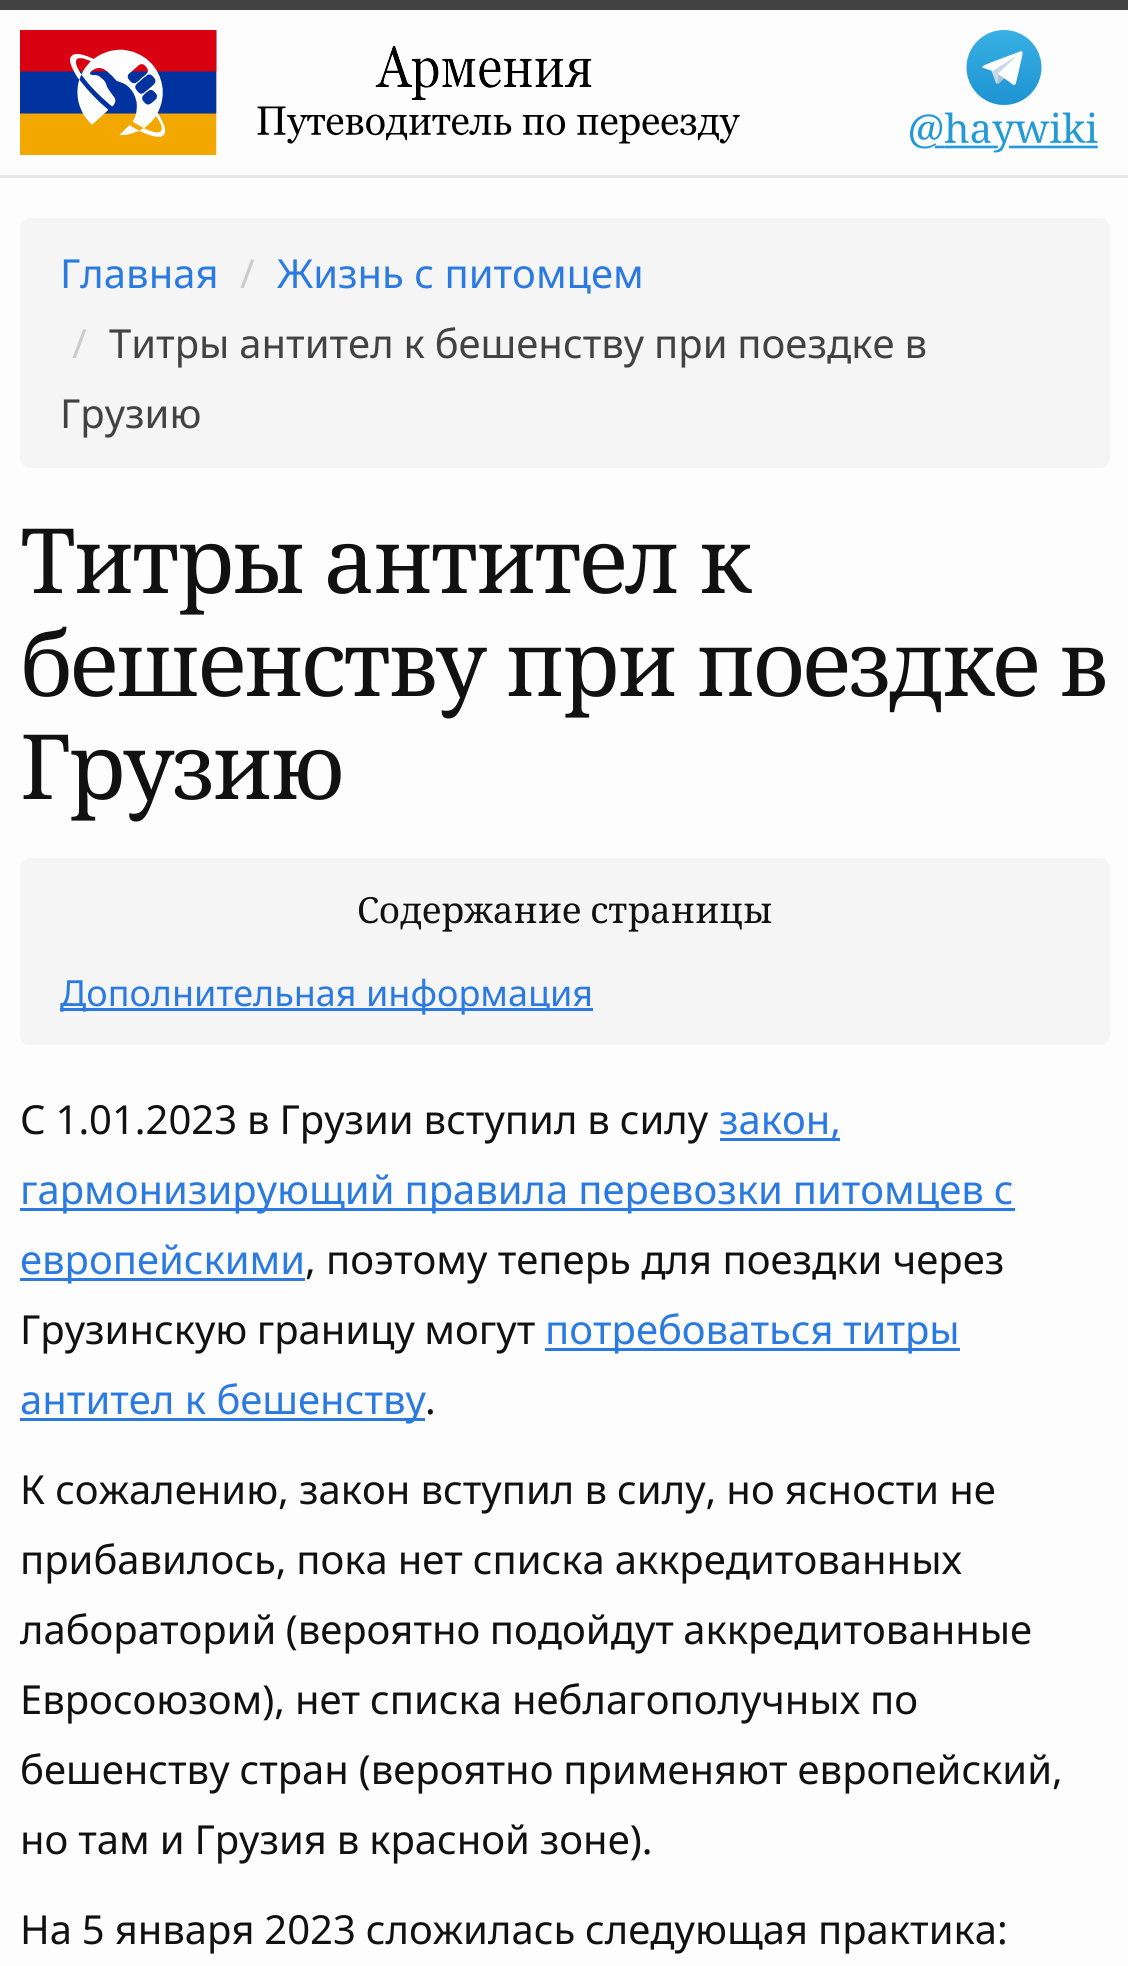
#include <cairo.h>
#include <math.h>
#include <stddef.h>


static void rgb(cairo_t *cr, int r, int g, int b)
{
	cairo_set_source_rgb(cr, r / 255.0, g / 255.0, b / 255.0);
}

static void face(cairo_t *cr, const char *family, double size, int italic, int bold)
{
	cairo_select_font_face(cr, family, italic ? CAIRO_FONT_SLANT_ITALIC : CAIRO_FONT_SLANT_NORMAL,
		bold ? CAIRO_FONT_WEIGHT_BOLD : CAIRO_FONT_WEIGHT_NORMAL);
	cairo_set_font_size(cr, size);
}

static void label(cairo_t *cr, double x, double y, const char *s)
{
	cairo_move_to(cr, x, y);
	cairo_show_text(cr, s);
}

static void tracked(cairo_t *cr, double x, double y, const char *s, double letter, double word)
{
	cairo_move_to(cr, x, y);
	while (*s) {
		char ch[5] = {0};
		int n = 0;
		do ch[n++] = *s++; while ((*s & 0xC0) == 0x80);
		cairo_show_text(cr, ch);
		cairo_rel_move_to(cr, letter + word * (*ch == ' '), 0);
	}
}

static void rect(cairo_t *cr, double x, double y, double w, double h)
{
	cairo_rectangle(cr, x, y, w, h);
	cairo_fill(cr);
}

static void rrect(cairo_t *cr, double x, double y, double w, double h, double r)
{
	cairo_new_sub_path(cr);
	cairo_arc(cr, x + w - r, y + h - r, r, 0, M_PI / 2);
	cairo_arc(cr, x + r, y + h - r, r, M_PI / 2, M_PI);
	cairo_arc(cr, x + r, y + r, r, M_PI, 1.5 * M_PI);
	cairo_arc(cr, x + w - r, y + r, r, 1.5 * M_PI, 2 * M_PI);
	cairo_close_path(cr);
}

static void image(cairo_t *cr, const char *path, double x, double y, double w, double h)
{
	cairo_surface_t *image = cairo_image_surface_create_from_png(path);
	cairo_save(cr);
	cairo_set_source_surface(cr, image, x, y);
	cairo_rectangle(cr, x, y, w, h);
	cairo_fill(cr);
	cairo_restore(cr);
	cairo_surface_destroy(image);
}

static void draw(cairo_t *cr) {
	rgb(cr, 253, 253, 253);
	cairo_paint(cr);
	rgb(cr, 66, 66, 66);
	rect(cr, 0, 0, 1128, 10);
	rgb(cr, 232, 232, 232);
	rect(cr, 0, 175, 1128, 3);
	image(cr, "image0.png", 20, 30, 720, 125);
	image(cr, "image1.png", 910, 30, 188, 123);
	rgb(cr, 245, 245, 245);
	rrect(cr, 20, 218, 1090, 250, 10);
	cairo_fill(cr);
	face(cr, "Noto Sans", 40, 0, 0);
	rgb(cr, 42, 122, 226);
	label(cr, 60, 288, "Главная");
	rgb(cr, 204, 204, 204);
	label(cr, 240, 288, "/");
	rgb(cr, 42, 122, 226);
	label(cr, 277, 288, "Жизнь с питомцем");
	rgb(cr, 204, 204, 204);
	label(cr, 72, 358, "/");
	rgb(cr, 66, 66, 66);
	tracked(cr, 109, 358, "Титры антител к бешенству при поездке в", 0, -0.5);
	label(cr, 60, 428, "Грузию");
	face(cr, "Noto Serif", 90, 0, 0);
	rgb(cr, 17, 17, 17);
	tracked(cr, 20, 593, "Титры антител к", -2.5, 0);
	tracked(cr, 20, 696, "бешенству при поездке в", -2.5, 0);
	tracked(cr, 20, 799, "Грузию", -2.5, 0);
	rgb(cr, 245, 245, 245);
	rrect(cr, 20, 858, 1090, 187, 10);
	cairo_fill(cr);
	face(cr, "Noto Serif", 36, 0, 0);
	rgb(cr, 17, 17, 17);
	label(cr, 357, 923, "Содержание страницы");
	rgb(cr, 42, 122, 226);
	rect(cr, 60, 1008, 533, 3);
	face(cr, "Noto Sans", 36, 0, 0);
	label(cr, 60, 1006, "Дополнительная информация");
	face(cr, "Noto Sans", 40, 0, 0);
	rgb(cr, 17, 17, 17);
	tracked(cr, 20, 1134, "С 1.01.2023 в Грузии вступил в силу", 0, -0.5);
	rgb(cr, 42, 122, 226);
	rect(cr, 720, 1138, 120, 3);
	label(cr, 719, 1134, "закон,");
	rect(cr, 20, 1208, 995, 3);
	tracked(cr, 20, 1204, "гармонизирующий правила перевозки питомцев с", 0, -0.5);
	rect(cr, 20, 1278, 285, 3);
	label(cr, 20, 1274, "европейскими");
	rgb(cr, 17, 17, 17);
	label(cr, 305, 1274, ", поэтому теперь для поездки через");
	tracked(cr, 20, 1344, "Грузинскую границу могут", 0, -1);
	rgb(cr, 42, 122, 226);
	rect(cr, 545, 1348, 415, 3);
	tracked(cr, 545, 1344, "потребоваться титры", 0, -1);
	rect(cr, 20, 1418, 405, 3);
	label(cr, 20, 1414, "антител к бешенству");
	rgb(cr, 17, 17, 17);
	label(cr, 425, 1414, ".");
	tracked(cr, 20, 1504, "К сожалению, закон вступил в силу, но ясности не", 0, -0.25);
	tracked(cr, 20, 1574, "прибавилось, пока нет списка аккредитованных", 0, -0.5);
	tracked(cr, 20, 1644, "лабораторий (вероятно подойдут аккредитованные", 0, -1);
	tracked(cr, 20, 1714, "Евросоюзом), нет списка неблагополучных по", 0, -0.5);
	tracked(cr, 20, 1784, "бешенству стран (вероятно применяют европейский,", 0, -0.5);
	tracked(cr, 20, 1854, "но там и Грузия в красной зоне).", 0, -0.5);
	tracked(cr, 20, 1944, "На 5 января 2023 сложилась следующая практика:", 0, -0.5);
}

int main(void) {
	cairo_surface_t *surface = cairo_image_surface_create(CAIRO_FORMAT_RGB24, 1128, 1966);
	cairo_t *cr = cairo_create(surface);
	cairo_font_options_t *options = cairo_font_options_create();
	cairo_font_options_set_hint_metrics(options, CAIRO_HINT_METRICS_OFF);
	cairo_font_options_set_hint_style(options, CAIRO_HINT_STYLE_NONE);
	cairo_set_font_options(cr, options);
	cairo_set_miter_limit(cr, 4);
	draw(cr);
	cairo_surface_write_to_png(surface, "render.png");
	cairo_font_options_destroy(options);
	cairo_destroy(cr);
	cairo_surface_destroy(surface);
	return 0;
}
